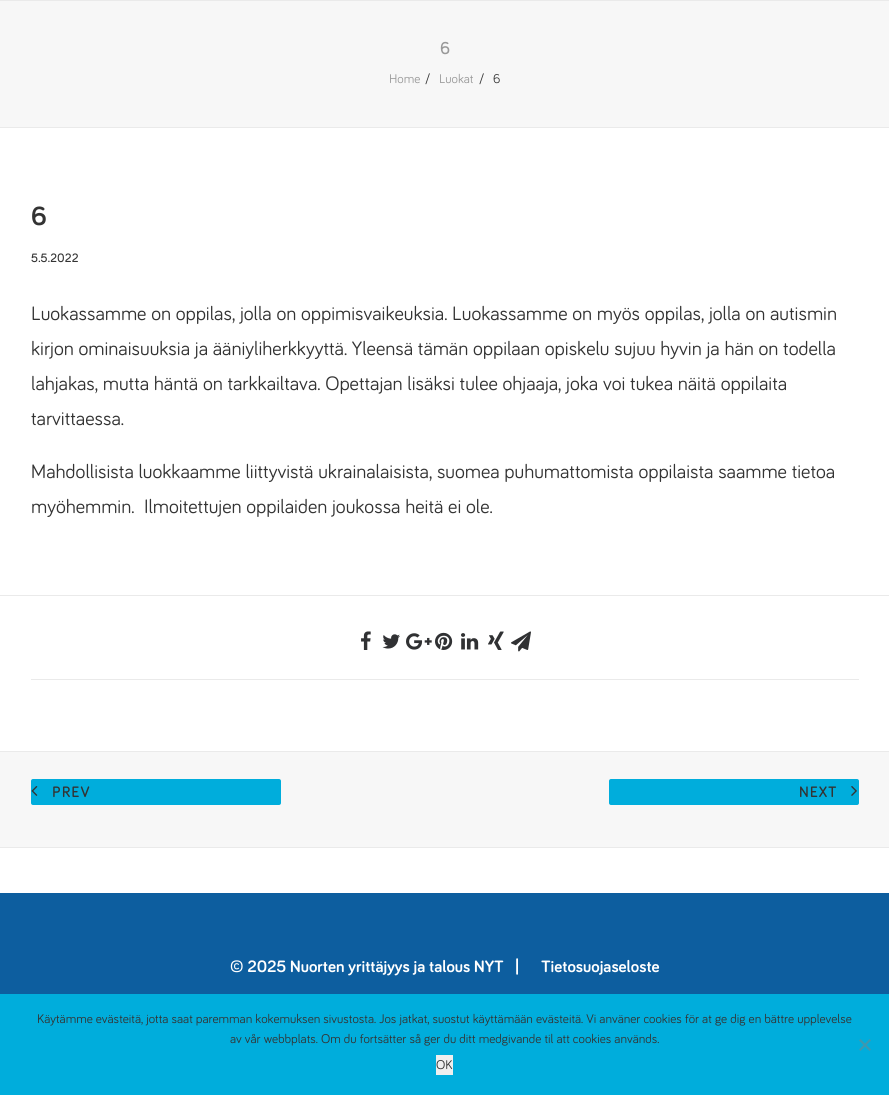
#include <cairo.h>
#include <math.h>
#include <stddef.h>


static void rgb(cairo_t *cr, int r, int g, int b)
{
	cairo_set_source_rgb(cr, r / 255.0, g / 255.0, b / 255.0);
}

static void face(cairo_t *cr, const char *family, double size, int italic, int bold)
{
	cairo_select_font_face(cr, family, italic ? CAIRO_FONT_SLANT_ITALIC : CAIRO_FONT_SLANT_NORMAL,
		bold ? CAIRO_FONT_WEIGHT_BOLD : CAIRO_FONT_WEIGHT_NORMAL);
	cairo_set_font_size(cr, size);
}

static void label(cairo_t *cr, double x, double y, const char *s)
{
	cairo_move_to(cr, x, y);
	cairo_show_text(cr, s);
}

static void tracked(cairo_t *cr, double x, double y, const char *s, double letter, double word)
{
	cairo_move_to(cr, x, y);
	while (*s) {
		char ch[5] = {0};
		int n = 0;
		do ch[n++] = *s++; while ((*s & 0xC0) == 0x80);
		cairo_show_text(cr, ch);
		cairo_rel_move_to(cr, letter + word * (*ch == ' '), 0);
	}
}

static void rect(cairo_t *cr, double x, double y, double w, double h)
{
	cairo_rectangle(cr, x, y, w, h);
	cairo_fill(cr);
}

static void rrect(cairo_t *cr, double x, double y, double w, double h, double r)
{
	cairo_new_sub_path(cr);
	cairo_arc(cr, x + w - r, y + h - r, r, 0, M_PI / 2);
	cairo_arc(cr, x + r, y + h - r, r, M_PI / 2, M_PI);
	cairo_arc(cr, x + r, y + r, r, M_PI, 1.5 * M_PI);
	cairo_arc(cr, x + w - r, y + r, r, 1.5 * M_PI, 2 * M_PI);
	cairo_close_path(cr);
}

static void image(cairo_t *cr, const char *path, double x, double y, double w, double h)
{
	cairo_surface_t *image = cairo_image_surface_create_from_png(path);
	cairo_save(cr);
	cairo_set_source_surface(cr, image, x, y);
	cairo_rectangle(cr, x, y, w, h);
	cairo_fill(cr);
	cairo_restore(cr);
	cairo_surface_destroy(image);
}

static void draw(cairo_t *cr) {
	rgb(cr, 255, 255, 255);
	cairo_paint(cr);
	rgb(cr, 247, 247, 247);
	rect(cr, 0, 1, 889, 126);
	rgb(cr, 234, 234, 234);
	rect(cr, 0, 0, 889, 1);
	rect(cr, 0, 127, 889, 1);
	face(cr, "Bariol", 17, 0, 1);
	rgb(cr, 153, 153, 153);
	label(cr, 440, 54, "6");
	face(cr, "Bariol", 13, 0, 0);
	label(cr, 389, 83, "Home");
	rgb(cr, 51, 51, 51);
	label(cr, 425, 83, "/");
	rgb(cr, 153, 153, 153);
	label(cr, 439, 83, "Luokat");
	rgb(cr, 51, 51, 51);
	label(cr, 479, 83, "/");
	label(cr, 493, 83, "6");
	face(cr, "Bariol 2", 27, 0, 1);
	label(cr, 31, 225, "6");
	face(cr, "Bariol", 12, 0, 1);
	tracked(cr, 31, 262, "5.5.2022", 0.5, 0);
	face(cr, "Bariol", 20, 0, 0);
	label(cr, 31, 320, "Luokassamme on oppilas, jolla on oppimisvaikeuksia. Luokassamme on myös oppilas, jolla on autismin");
	label(cr, 31, 355, "kirjon ominaisuuksia ja ääniyliherkkyyttä. Yleensä tämän oppilaan opiskelu sujuu hyvin ja hän on todella");
	label(cr, 31, 390, "lahjakas, mutta häntä on tarkkailtava. Opettajan lisäksi tulee ohjaaja, joka voi tukea näitä oppilaita");
	label(cr, 31, 425, "tarvittaessa.");
	label(cr, 31, 478, "Mahdollisista luokkaamme liittyvistä ukrainalaisista, suomea puhumattomista oppilaista saamme tietoa");
	label(cr, 31, 513, "myöhemmin.  Ilmoitettujen oppilaiden joukossa heitä ei ole.");
	rgb(cr, 234, 234, 234);
	rect(cr, 0, 595, 889, 1);
	rect(cr, 31, 679, 828, 1);
	image(cr, "image0.png", 361, 631, 10, 19);
	image(cr, "image1.png", 382, 634, 18, 15);
	image(cr, "image2.png", 406, 633, 26, 17);
	image(cr, "image3.png", 435, 632, 18, 18);
	image(cr, "image4.png", 461, 633, 18, 17);
	image(cr, "image5.png", 488, 631, 16, 19);
	image(cr, "image6.png", 511, 631, 20, 21);
	rgb(cr, 247, 247, 247);
	cairo_rectangle(cr, -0.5, 751.5, 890, 96);
	cairo_fill_preserve(cr);
	rgb(cr, 234, 234, 234);
	cairo_set_line_width(cr, 1);
	cairo_stroke(cr);
	rgb(cr, 0, 173, 220);
	rrect(cr, 31, 779, 250, 26, 2);
	cairo_fill(cr);
	image(cr, "image7.png", 31, 786, 7, 10);
	face(cr, "Bariol", 15, 0, 1);
	rgb(cr, 51, 51, 51);
	tracked(cr, 52, 797, "PREV", 1.5, 0);
	rgb(cr, 0, 173, 220);
	rrect(cr, 609, 779, 250, 26, 2);
	cairo_fill(cr);
	rgb(cr, 51, 51, 51);
	tracked(cr, 799, 797, "NEXT", 1.5, 0);
	image(cr, "image8.png", 851, 786, 6, 10);
	rgb(cr, 13, 94, 159);
	rect(cr, 0, 893, 889, 101);
	face(cr, "Bariol 2", 17, 0, 1);
	rgb(cr, 255, 255, 255);
	label(cr, 230, 972, "© 2025 Nuorten yrittäjyys ja talous NYT   |");
	label(cr, 541, 972, "Tietosuojaseloste");
	rgb(cr, 0, 173, 220);
	rect(cr, 0, 994, 889, 101);
	face(cr, "Bariol", 13, 0, 0);
	rgb(cr, 51, 51, 51);
	label(cr, 37, 1023, "Käytämme evästeitä, jotta saat paremman kokemuksen sivustosta. Jos jatkat, suostut käyttämään evästeitä. Vi använer cookies för at ge dig en bättre upplevelse");
	label(cr, 230, 1043, "av vår webbplats. Om du fortsätter så ger du ditt medgivande til att cookies används.");
	rgb(cr, 64, 151, 174);
	cairo_new_path(cr);
	cairo_move_to(cr, 869.5, 1039);
	cairo_line_to(cr, 871, 1040.5);
	cairo_line_to(cr, 860.5, 1051);
	cairo_line_to(cr, 859, 1049.5);
	cairo_close_path(cr);
	cairo_fill(cr);
	cairo_new_path(cr);
	cairo_move_to(cr, 859, 1040.5);
	cairo_line_to(cr, 860.5, 1039);
	cairo_line_to(cr, 871, 1049.5);
	cairo_line_to(cr, 869.5, 1051);
	cairo_close_path(cr);
	cairo_fill(cr);
	rgb(cr, 239, 239, 239);
	rect(cr, 436, 1055, 17, 20);
	rgb(cr, 51, 51, 51);
	label(cr, 436, 1069, "OK");
}

int main(void) {
	cairo_surface_t *surface = cairo_image_surface_create(CAIRO_FORMAT_RGB24, 889, 1095);
	cairo_t *cr = cairo_create(surface);
	cairo_font_options_t *options = cairo_font_options_create();
	cairo_font_options_set_hint_metrics(options, CAIRO_HINT_METRICS_OFF);
	cairo_font_options_set_hint_style(options, CAIRO_HINT_STYLE_NONE);
	cairo_set_font_options(cr, options);
	cairo_set_miter_limit(cr, 4);
	draw(cr);
	cairo_surface_write_to_png(surface, "render.png");
	cairo_font_options_destroy(options);
	cairo_destroy(cr);
	cairo_surface_destroy(surface);
	return 0;
}
